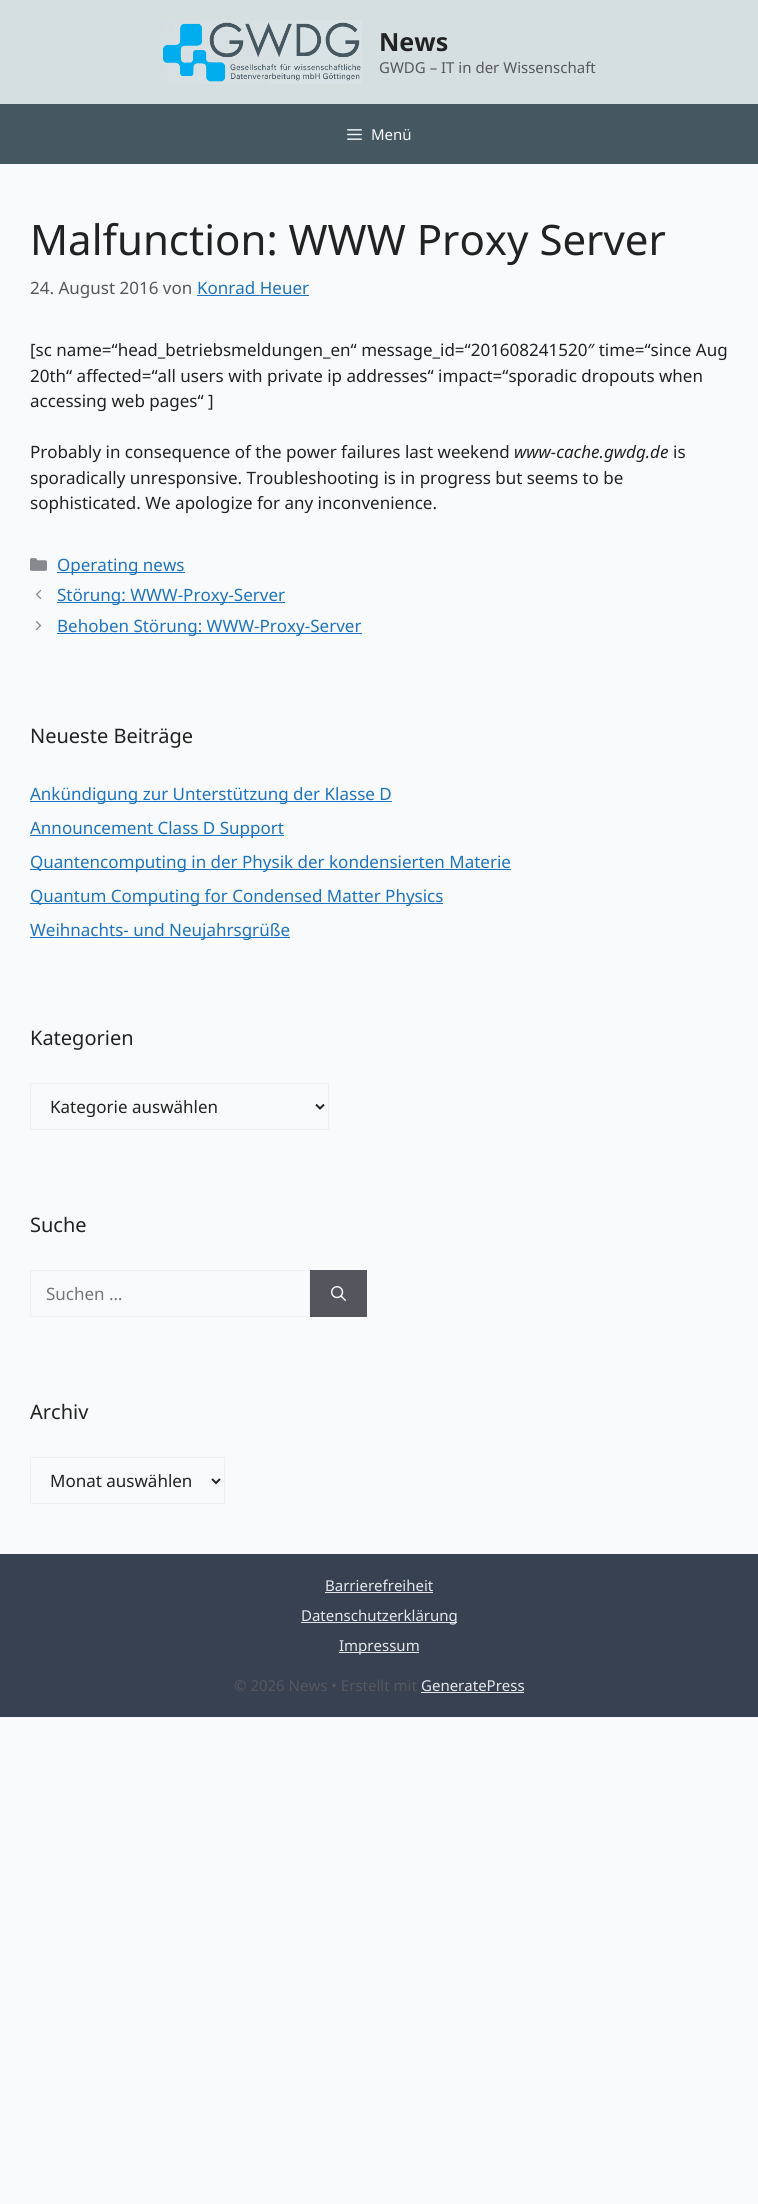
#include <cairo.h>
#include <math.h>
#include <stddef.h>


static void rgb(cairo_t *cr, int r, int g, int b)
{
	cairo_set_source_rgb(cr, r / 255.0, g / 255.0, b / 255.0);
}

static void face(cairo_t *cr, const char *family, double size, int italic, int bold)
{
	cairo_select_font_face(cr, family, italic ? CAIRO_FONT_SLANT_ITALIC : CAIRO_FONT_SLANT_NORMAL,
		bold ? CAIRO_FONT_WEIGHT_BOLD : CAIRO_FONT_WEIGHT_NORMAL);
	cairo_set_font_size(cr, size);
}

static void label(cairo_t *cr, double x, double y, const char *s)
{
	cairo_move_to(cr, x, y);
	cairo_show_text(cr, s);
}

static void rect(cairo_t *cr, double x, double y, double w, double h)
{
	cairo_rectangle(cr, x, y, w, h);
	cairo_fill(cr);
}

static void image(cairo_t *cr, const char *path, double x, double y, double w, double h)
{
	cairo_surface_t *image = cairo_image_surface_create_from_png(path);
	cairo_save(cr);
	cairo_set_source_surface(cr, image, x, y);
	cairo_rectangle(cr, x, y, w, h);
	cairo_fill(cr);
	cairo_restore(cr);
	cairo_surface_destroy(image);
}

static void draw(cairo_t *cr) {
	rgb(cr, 249, 250, 251);
	cairo_paint(cr);
	rgb(cr, 214, 223, 224);
	rect(cr, 0, 0, 758, 104);
	image(cr, "image0.png", 162, 20, 200, 64);
	face(cr, "Noto Sans", 25, 0, 1);
	rgb(cr, 34, 34, 34);
	label(cr, 379, 51, "News");
	face(cr, "Noto Sans", 15, 0, 0);
	rgb(cr, 87, 87, 96);
	label(cr, 379, 73, "GWDG – IT in der Wissenschaft");
	rgb(cr, 69, 87, 97);
	rect(cr, 0, 104, 758, 60);
	image(cr, "image1.png", 347, 129, 15, 11);
	rgb(cr, 249, 250, 251);
	label(cr, 371, 140, "Menü");
	face(cr, "Noto Sans", 42, 0, 0);
	rgb(cr, 34, 34, 34);
	label(cr, 30, 255, "Malfunction: WWW Proxy Server");
	face(cr, "Noto Sans", 17, 0, 0);
	rgb(cr, 87, 87, 96);
	label(cr, 30, 294, "24. August 2016 von");
	rgb(cr, 30, 115, 190);
	label(cr, 197, 294, "Konrad Heuer");
	rect(cr, 197, 295, 112, 1);
	rgb(cr, 34, 34, 34);
	label(cr, 30, 356, "[sc name=“head_betriebsmeldungen_en“ message_id=“201608241520″ time=“since Aug");
	label(cr, 30, 382, "20th“ affected=“all users with private ip addresses“ impact=“sporadic dropouts when");
	label(cr, 30, 407, "accessing web pages“ ]");
	label(cr, 30, 458, "Probably in consequence of the power failures last weekend");
	face(cr, "Noto Sans", 17, 1, 0);
	label(cr, 514, 458, "www-cache.gwdg.de");
	face(cr, "Noto Sans", 17, 0, 0);
	label(cr, 673, 458, "is");
	label(cr, 30, 484, "sporadically unresponsive. Troubleshooting is in progress but seems to be");
	label(cr, 30, 509, "sophisticated. We apologize for any inconvenience.");
	image(cr, "image2.png", 30, 558, 17, 13);
	rgb(cr, 30, 115, 190);
	rect(cr, 57, 572, 128, 1);
	label(cr, 57, 571, "Operating news");
	image(cr, "image3.png", 35, 589, 7, 11);
	rect(cr, 57, 602, 228, 1);
	label(cr, 57, 601, "Störung: WWW-Proxy-Server");
	image(cr, "image4.png", 35, 620, 7, 11);
	rect(cr, 57, 633, 305, 1);
	label(cr, 57, 632, "Behoben Störung: WWW-Proxy-Server");
	face(cr, "Noto Sans", 20, 0, 0);
	rgb(cr, 34, 34, 34);
	label(cr, 30, 743, "Neueste Beiträge");
	rgb(cr, 30, 115, 190);
	rect(cr, 30, 801, 362, 1);
	face(cr, "Noto Sans", 17, 0, 0);
	label(cr, 30, 800, "Ankündigung zur Unterstützung der Klasse D");
	rect(cr, 30, 835, 254, 1);
	label(cr, 30, 834, "Announcement Class D Support");
	rect(cr, 30, 869, 481, 1);
	label(cr, 30, 868, "Quantencomputing in der Physik der kondensierten Materie");
	rect(cr, 30, 903, 413, 1);
	label(cr, 30, 902, "Quantum Computing for Condensed Matter Physics");
	rect(cr, 30, 937, 260, 1);
	label(cr, 30, 936, "Weihnachts- und Neujahrsgrüße");
	face(cr, "Noto Sans", 20, 0, 0);
	rgb(cr, 34, 34, 34);
	label(cr, 30, 1045, "Kategorien");
	cairo_rectangle(cr, 30.5, 1083.5, 298, 46);
	rgb(cr, 240, 240, 240);
	cairo_set_line_width(cr, 1);
	cairo_stroke(cr);
	cairo_new_path(cr);
	cairo_move_to(cr, 316, 1104.5);
	cairo_line_to(cr, 320, 1108.5);
	cairo_line_to(cr, 324, 1104.5);
	rgb(cr, 34, 34, 34);
	cairo_set_line_width(cr, 2);
	cairo_stroke(cr);
	face(cr, "Noto Sans", 17, 0, 0);
	label(cr, 50, 1113, "Kategorie auswählen");
	face(cr, "Noto Sans", 20, 0, 0);
	label(cr, 30, 1232, "Suche");
	cairo_rectangle(cr, 30.5, 1270.5, 279, 46);
	rgb(cr, 240, 240, 240);
	cairo_set_line_width(cr, 1);
	cairo_stroke(cr);
	face(cr, "Noto Sans", 17, 0, 0);
	rgb(cr, 117, 117, 117);
	label(cr, 46, 1300, "Suchen …");
	rgb(cr, 85, 85, 94);
	rect(cr, 310, 1270, 57, 47);
	image(cr, "image5.png", 331, 1286, 15, 15);
	face(cr, "Noto Sans", 20, 0, 0);
	rgb(cr, 34, 34, 34);
	label(cr, 30, 1419, "Archiv");
	cairo_rectangle(cr, 30.5, 1457.5, 194, 46);
	rgb(cr, 240, 240, 240);
	cairo_stroke(cr);
	cairo_new_path(cr);
	cairo_move_to(cr, 212, 1479);
	cairo_line_to(cr, 216, 1483);
	cairo_line_to(cr, 220, 1479);
	rgb(cr, 34, 34, 34);
	cairo_set_line_width(cr, 2);
	cairo_stroke(cr);
	face(cr, "Noto Sans", 17, 0, 0);
	label(cr, 50, 1487, "Monat auswählen");
	rgb(cr, 55, 65, 81);
	rect(cr, 0, 1554, 758, 163);
	face(cr, "Noto Sans", 15, 0, 0);
	rgb(cr, 229, 231, 235);
	label(cr, 325, 1591, "Barrierefreiheit");
	rect(cr, 325, 1592, 108, 1);
	rect(cr, 301, 1622, 156, 1);
	label(cr, 301, 1621, "Datenschutzerklärung");
	rect(cr, 339, 1652, 80, 1);
	label(cr, 339, 1651, "Impressum");
	rgb(cr, 87, 87, 96);
	label(cr, 234, 1691, "© 2026 News • Erstellt mit");
	rgb(cr, 229, 231, 235);
	label(cr, 421, 1691, "GeneratePress");
	rect(cr, 421, 1692, 103, 1);
}

int main(void) {
	cairo_surface_t *surface = cairo_image_surface_create(CAIRO_FORMAT_RGB24, 758, 2204);
	cairo_t *cr = cairo_create(surface);
	cairo_font_options_t *options = cairo_font_options_create();
	cairo_font_options_set_hint_metrics(options, CAIRO_HINT_METRICS_OFF);
	cairo_font_options_set_hint_style(options, CAIRO_HINT_STYLE_NONE);
	cairo_set_font_options(cr, options);
	cairo_set_miter_limit(cr, 4);
	draw(cr);
	cairo_surface_write_to_png(surface, "render.png");
	cairo_font_options_destroy(options);
	cairo_destroy(cr);
	cairo_surface_destroy(surface);
	return 0;
}
